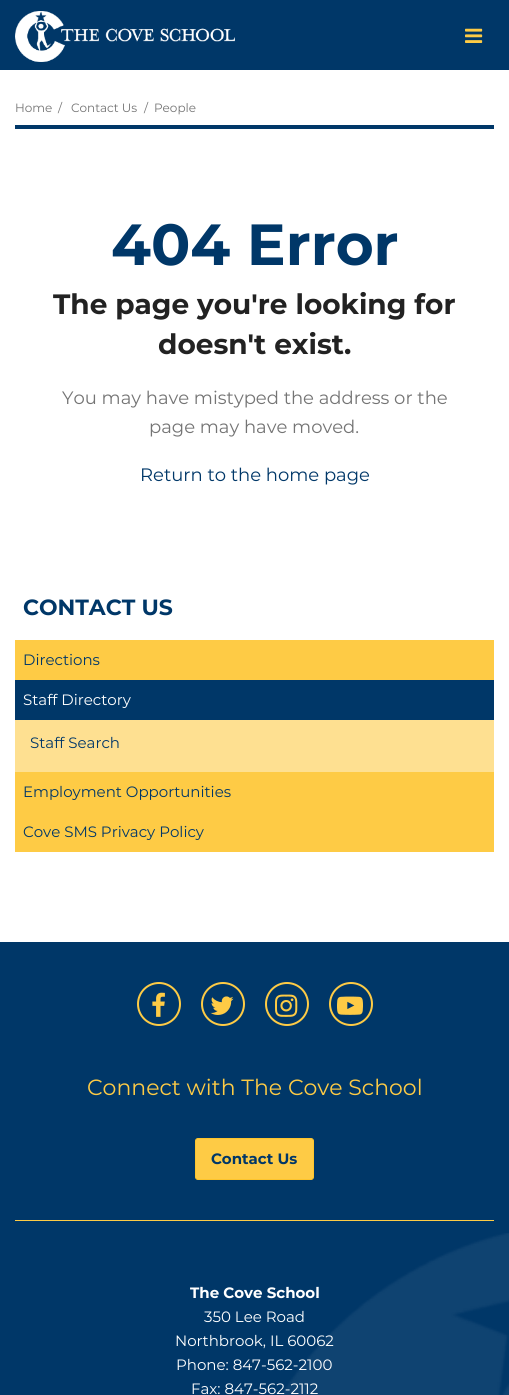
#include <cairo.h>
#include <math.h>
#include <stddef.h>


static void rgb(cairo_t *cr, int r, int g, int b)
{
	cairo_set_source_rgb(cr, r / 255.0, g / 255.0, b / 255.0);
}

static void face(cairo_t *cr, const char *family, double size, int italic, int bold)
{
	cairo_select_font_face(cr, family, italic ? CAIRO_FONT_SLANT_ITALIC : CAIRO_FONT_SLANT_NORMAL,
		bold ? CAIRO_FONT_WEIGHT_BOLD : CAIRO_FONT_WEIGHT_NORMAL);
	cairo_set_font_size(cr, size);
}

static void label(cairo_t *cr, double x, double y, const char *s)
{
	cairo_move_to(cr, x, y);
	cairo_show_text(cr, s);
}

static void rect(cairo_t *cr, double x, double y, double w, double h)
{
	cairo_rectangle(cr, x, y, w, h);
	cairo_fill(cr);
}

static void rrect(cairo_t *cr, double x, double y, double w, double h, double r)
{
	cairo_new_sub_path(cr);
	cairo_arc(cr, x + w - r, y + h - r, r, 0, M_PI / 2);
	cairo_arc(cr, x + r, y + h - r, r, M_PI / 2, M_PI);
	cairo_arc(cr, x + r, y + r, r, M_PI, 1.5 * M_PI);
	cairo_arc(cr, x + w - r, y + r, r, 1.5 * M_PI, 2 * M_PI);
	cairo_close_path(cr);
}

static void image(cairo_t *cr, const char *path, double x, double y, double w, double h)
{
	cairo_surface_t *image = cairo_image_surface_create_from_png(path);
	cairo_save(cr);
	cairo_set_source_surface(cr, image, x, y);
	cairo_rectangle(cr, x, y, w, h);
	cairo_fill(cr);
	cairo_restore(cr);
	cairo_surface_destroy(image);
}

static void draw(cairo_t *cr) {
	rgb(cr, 255, 255, 255);
	cairo_paint(cr);
	rgb(cr, 0, 55, 104);
	rect(cr, 0, 0, 509, 70);
	image(cr, "image0.png", 15, 11, 220, 51);
	image(cr, "image1.png", 465, 28, 18, 15);
	rect(cr, 15, 125, 479, 4);
	face(cr, "Montserrat", 12, 0, 0);
	rgb(cr, 116, 116, 116);
	label(cr, 15, 112, "Home");
	label(cr, 58, 112, "/");
	label(cr, 71, 112, "Contact Us");
	label(cr, 144, 112, "/");
	label(cr, 154, 112, "People");
	face(cr, "Montserrat", 58, 0, 1);
	rgb(cr, 0, 55, 104);
	label(cr, 111, 265, "404 Error");
	face(cr, "Montserrat", 28, 0, 1);
	rgb(cr, 34, 34, 34);
	label(cr, 53, 314, "The page you're looking for");
	label(cr, 158, 354, "doesn't exist.");
	face(cr, "Montserrat", 18, 0, 0);
	rgb(cr, 116, 116, 116);
	label(cr, 62, 404, "You may have mistyped the address or the");
	label(cr, 149, 433, "page may have moved.");
	rgb(cr, 0, 55, 104);
	label(cr, 140, 481, "Return to the home page");
	face(cr, "Montserrat", 22, 0, 1);
	label(cr, 23, 615, "CONTACT US");
	rgb(cr, 254, 203, 69);
	rect(cr, 15, 640, 479, 40);
	face(cr, "Montserrat", 15, 0, 0);
	rgb(cr, 0, 55, 104);
	label(cr, 23, 665, "Directions");
	rect(cr, 15, 680, 479, 40);
	rgb(cr, 255, 255, 255);
	label(cr, 23, 705, "Staff Directory");
	rgb(cr, 254, 224, 145);
	rect(cr, 15, 720, 479, 52);
	rgb(cr, 0, 55, 104);
	label(cr, 30, 748, "Staff Search");
	rgb(cr, 254, 203, 69);
	rect(cr, 15, 772, 479, 80);
	rgb(cr, 0, 55, 104);
	label(cr, 23, 797, "Employment Opportunities");
	label(cr, 23, 837, "Cove SMS Privacy Policy");
	rect(cr, 0, 942, 509, 453);
	cairo_new_path(cr);
	cairo_arc(cr, 159, 1004, 21, 0, 2 * M_PI);
	rgb(cr, 254, 203, 69);
	cairo_stroke(cr);
	image(cr, "image2.png", 152, 992, 13, 25);
	cairo_arc(cr, 223, 1004, 21, 0, 2 * M_PI);
	cairo_stroke(cr);
	image(cr, "image3.png", 210, 996, 24, 19);
	cairo_arc(cr, 287, 1004, 21, 0, 2 * M_PI);
	cairo_stroke(cr);
	image(cr, "image4.png", 275, 994, 23, 23);
	cairo_arc(cr, 351, 1004, 21, 0, 2 * M_PI);
	cairo_stroke(cr);
	image(cr, "image5.png", 337, 996, 26, 19);
	face(cr, "Montserrat", 22, 0, 0);
	label(cr, 87, 1095, "Connect with The Cove School");
	rrect(cr, 195.5, 1138.5, 118, 41, 2.5);
	cairo_fill_preserve(cr);
	rgb(cr, 254, 196, 44);
	cairo_set_line_width(cr, 1);
	cairo_stroke(cr);
	face(cr, "Montserrat", 15, 0, 1);
	rgb(cr, 0, 55, 104);
	label(cr, 211, 1164, "Contact Us");
	rgb(cr, 254, 203, 69);
	rect(cr, 15, 1220, 479, 1);
	image(cr, "image6.png", 281, 1233, 228, 162);
	rgb(cr, 255, 255, 255);
	label(cr, 190, 1298, "The Cove School");
	face(cr, "Montserrat", 15, 0, 0);
	label(cr, 204, 1322, "350 Lee Road");
	label(cr, 175, 1346, "Northbrook, IL 60062");
	label(cr, 176, 1370, "Phone: 847-562-2100");
	label(cr, 191, 1394, "Fax: 847-562-2112");
}

int main(void) {
	cairo_surface_t *surface = cairo_image_surface_create(CAIRO_FORMAT_RGB24, 509, 1395);
	cairo_t *cr = cairo_create(surface);
	cairo_font_options_t *options = cairo_font_options_create();
	cairo_font_options_set_hint_metrics(options, CAIRO_HINT_METRICS_OFF);
	cairo_font_options_set_hint_style(options, CAIRO_HINT_STYLE_NONE);
	cairo_set_font_options(cr, options);
	cairo_set_miter_limit(cr, 4);
	draw(cr);
	cairo_surface_write_to_png(surface, "render.png");
	cairo_font_options_destroy(options);
	cairo_destroy(cr);
	cairo_surface_destroy(surface);
	return 0;
}
